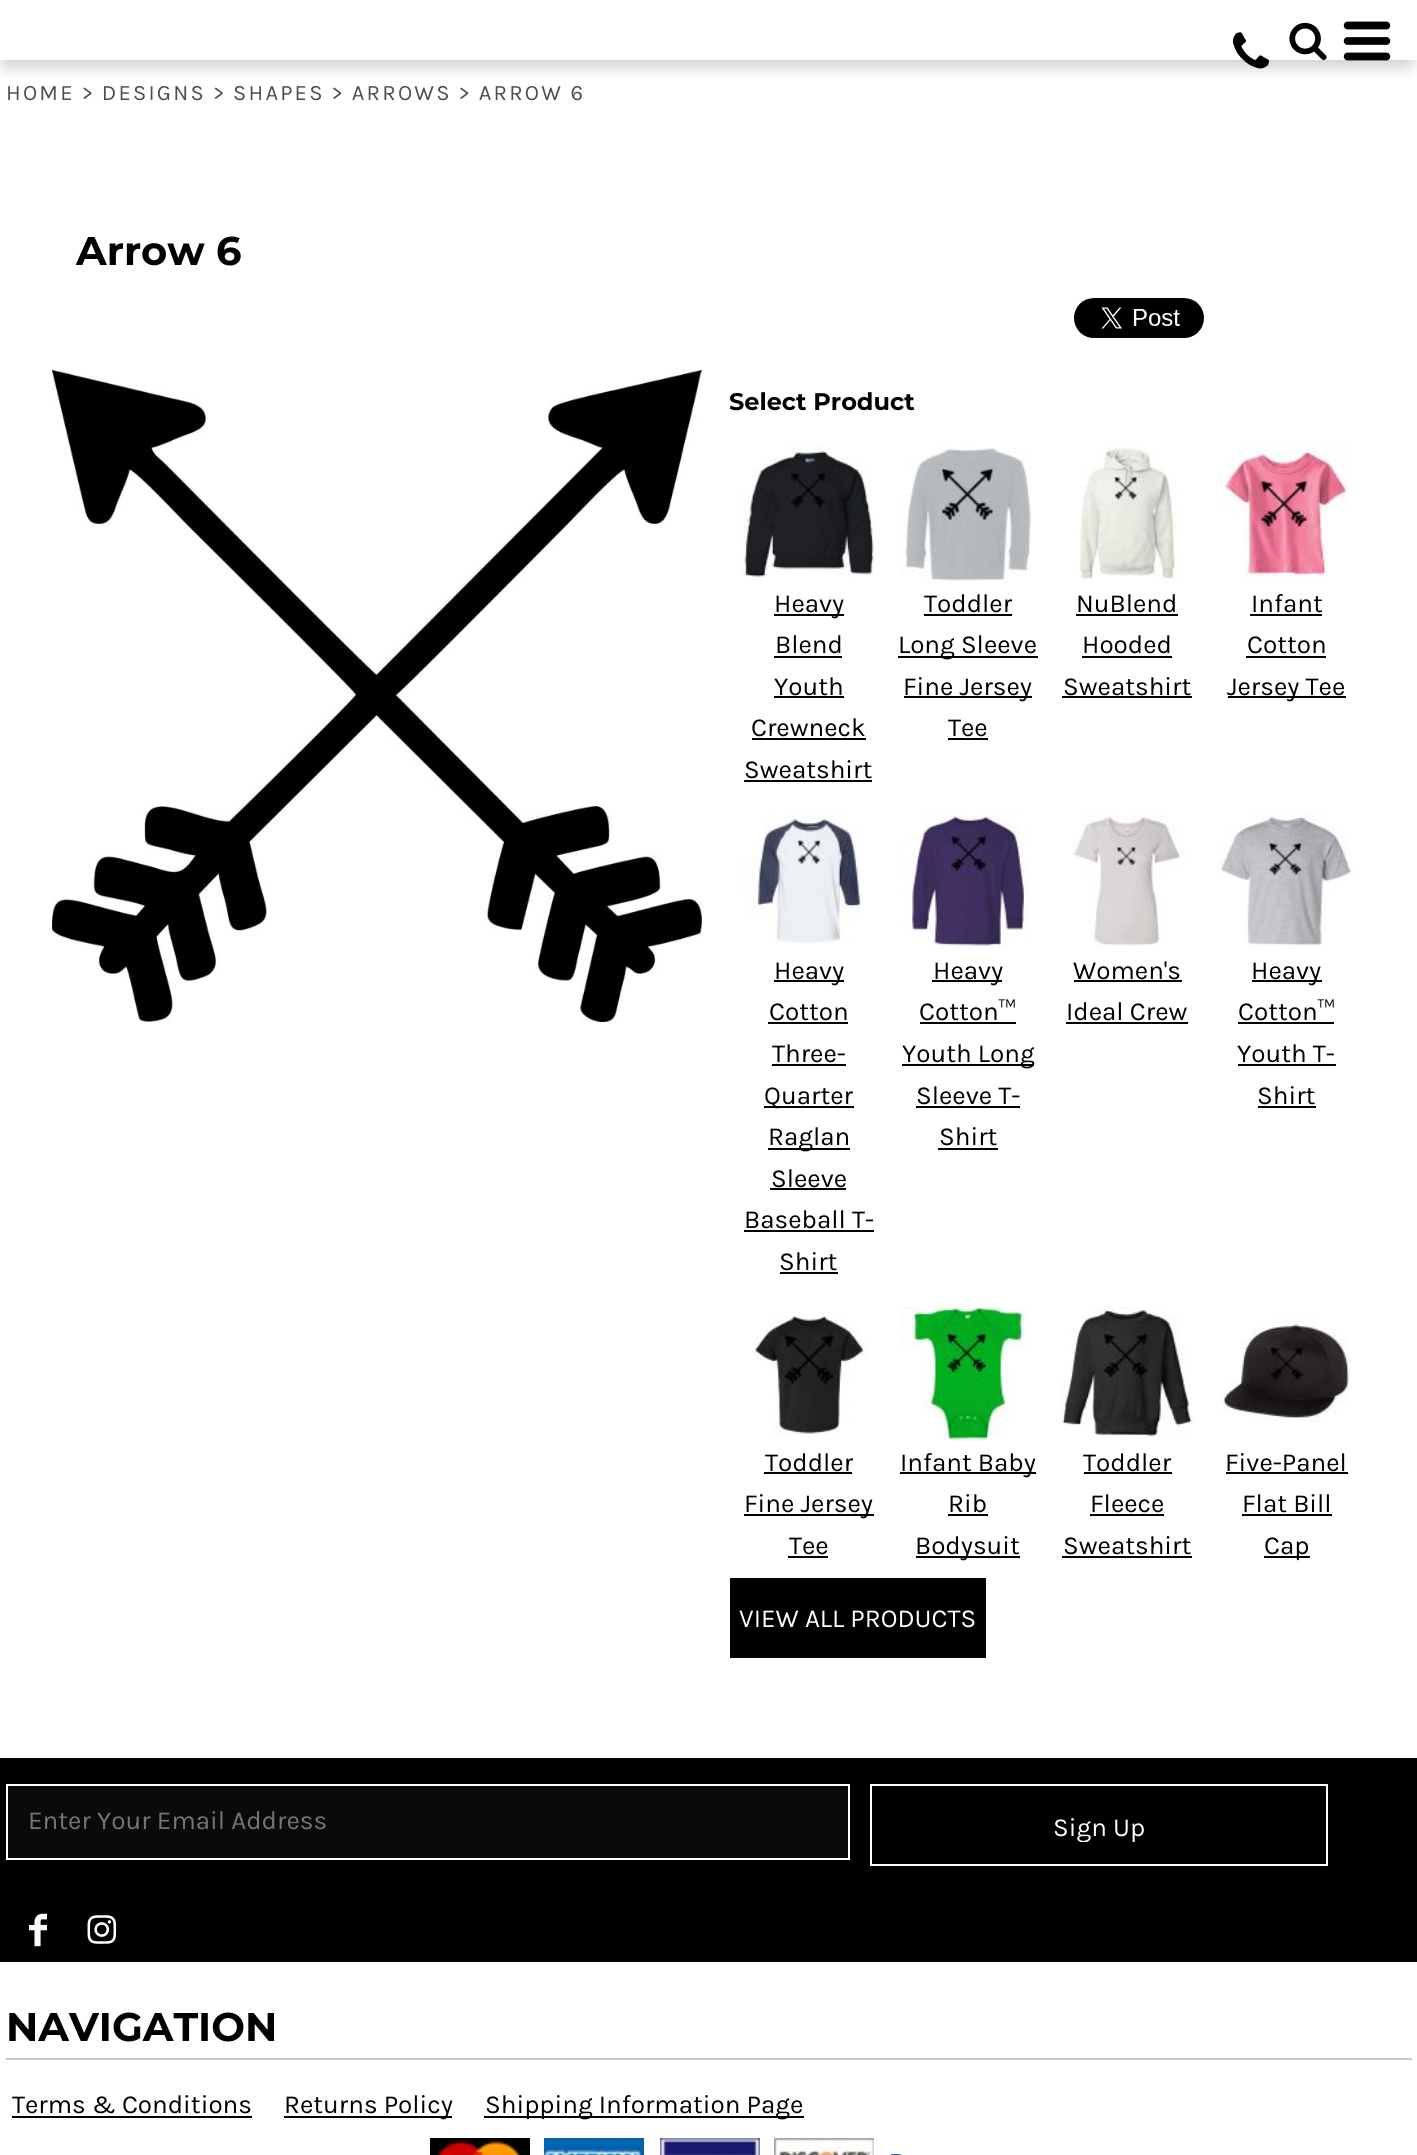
#include <cairo.h>
#include <math.h>
#include <stddef.h>


static void rgb(cairo_t *cr, int r, int g, int b)
{
	cairo_set_source_rgb(cr, r / 255.0, g / 255.0, b / 255.0);
}

static void face(cairo_t *cr, const char *family, double size, int italic, int bold)
{
	cairo_select_font_face(cr, family, italic ? CAIRO_FONT_SLANT_ITALIC : CAIRO_FONT_SLANT_NORMAL,
		bold ? CAIRO_FONT_WEIGHT_BOLD : CAIRO_FONT_WEIGHT_NORMAL);
	cairo_set_font_size(cr, size);
}

static void label(cairo_t *cr, double x, double y, const char *s)
{
	cairo_move_to(cr, x, y);
	cairo_show_text(cr, s);
}

static void tracked(cairo_t *cr, double x, double y, const char *s, double letter, double word)
{
	cairo_move_to(cr, x, y);
	while (*s) {
		char ch[5] = {0};
		int n = 0;
		do ch[n++] = *s++; while ((*s & 0xC0) == 0x80);
		cairo_show_text(cr, ch);
		cairo_rel_move_to(cr, letter + word * (*ch == ' '), 0);
	}
}

static void rect(cairo_t *cr, double x, double y, double w, double h)
{
	cairo_rectangle(cr, x, y, w, h);
	cairo_fill(cr);
}

static void rrect(cairo_t *cr, double x, double y, double w, double h, double r)
{
	cairo_new_sub_path(cr);
	cairo_arc(cr, x + w - r, y + h - r, r, 0, M_PI / 2);
	cairo_arc(cr, x + r, y + h - r, r, M_PI / 2, M_PI);
	cairo_arc(cr, x + r, y + r, r, M_PI, 1.5 * M_PI);
	cairo_arc(cr, x + w - r, y + r, r, 1.5 * M_PI, 2 * M_PI);
	cairo_close_path(cr);
}

static void soft_shadow(cairo_t *cr, double x, double y, double w, double h, double r, double blur, double alpha)
{
	cairo_push_group_with_content(cr, CAIRO_CONTENT_ALPHA);
	cairo_set_operator(cr, CAIRO_OPERATOR_SOURCE);
	for (int i = 15; i >= -15 && fmin(w, h) + blur * i / 3 > 0; i -= 2) {
		double e = blur * i / 6;
		cairo_set_source_rgba(cr, 0, 0, 0, alpha * erfc((i - 1) / 8.5) / 2);
		rrect(cr, x - e, y - e, w + 2 * e, h + 2 * e, fmax(0, fmin(r + e + blur * .6, fmin(w, h) / 2 + e)));
		cairo_fill(cr);
	}
	cairo_pattern_t *soft = cairo_pop_group(cr);
	cairo_mask(cr, soft);
	cairo_pattern_destroy(soft);
}

static void image(cairo_t *cr, const char *path, double x, double y, double w, double h)
{
	cairo_surface_t *image = cairo_image_surface_create_from_png(path);
	cairo_save(cr);
	cairo_set_source_surface(cr, image, x, y);
	cairo_rectangle(cr, x, y, w, h);
	cairo_fill(cr);
	cairo_restore(cr);
	cairo_surface_destroy(image);
}

static void draw(cairo_t *cr) {
	rgb(cr, 255, 255, 255);
	cairo_paint(cr);
	cairo_save(cr);
	cairo_rectangle(cr, 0, 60, 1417, 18);
	cairo_clip(cr);
	rgb(cr, 0, 0, 0);
	soft_shadow(cr, 6, 20, 1402, 44, 0, 10, 0.25);
	cairo_restore(cr);
	face(cr, "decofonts", 46, 0, 0);
	rgb(cr, 0, 0, 0);
	label(cr, 1228, 75, ";");
	image(cr, "image0.png", 1289, 22, 38, 38);
	image(cr, "image1.png", 1343, 21, 48, 40);
	face(cr, "Karla", 22, 0, 0);
	rgb(cr, 77, 77, 77);
	tracked(cr, 6, 100, "HOME > DESIGNS > SHAPES > ARROWS > ARROW 6", 2.2, 0);
	face(cr, "Montserrat Thin", 40, 0, 0);
	rgb(cr, 0, 0, 0);
	label(cr, 76, 265, "Arrow 6");
	image(cr, "image2.png", 1074, 298, 130, 40);
	image(cr, "image3.png", 52, 370, 650, 652);
	face(cr, "Montserrat Thin", 24, 0, 0);
	label(cr, 729, 410, "Select Product");
	image(cr, "image4.png", 742, 446, 134, 131);
	rect(cr, 774, 614, 70, 2);
	face(cr, "Karla", 26, 0, 0);
	label(cr, 774, 612, "Heavy");
	label(cr, 775, 653, "Blend");
	rect(cr, 774, 656, 68, 2);
	label(cr, 774, 695, "Youth");
	rect(cr, 774, 696, 70, 2);
	label(cr, 751, 736, "Crewneck");
	rect(cr, 752, 738, 114, 2);
	label(cr, 744, 778, "Sweatshirt");
	rect(cr, 744, 780, 128, 2);
	image(cr, "image5.png", 900, 447, 131, 135);
	label(cr, 924, 612, "Toddler");
	rect(cr, 924, 614, 88, 2);
	rect(cr, 898, 656, 140, 2);
	label(cr, 898, 653, "Long Sleeve");
	rect(cr, 904, 696, 128, 2);
	label(cr, 903, 695, "Fine Jersey");
	label(cr, 948, 736, "Tee");
	rect(cr, 948, 738, 40, 2);
	image(cr, "image6.png", 1079, 446, 99, 136);
	label(cr, 1076, 612, "NuBlend");
	rect(cr, 1076, 614, 102, 2);
	label(cr, 1082, 653, "Hooded");
	rect(cr, 1082, 656, 90, 2);
	label(cr, 1063, 695, "Sweatshirt");
	rect(cr, 1062, 696, 130, 2);
	image(cr, "image7.png", 1218, 446, 131, 132);
	label(cr, 1251, 612, "Infant");
	rect(cr, 1250, 614, 72, 2);
	label(cr, 1247, 653, "Cotton");
	rect(cr, 1246, 656, 80, 2);
	rect(cr, 1228, 696, 118, 2);
	label(cr, 1227, 695, "Jersey Tee");
	image(cr, "image8.png", 742, 814, 123, 129);
	rect(cr, 774, 980, 70, 2);
	label(cr, 774, 979, "Heavy");
	label(cr, 769, 1020, "Cotton");
	rect(cr, 768, 1022, 80, 2);
	label(cr, 772, 1062, "Three-");
	rect(cr, 772, 1064, 74, 2);
	rect(cr, 764, 1106, 90, 2);
	label(cr, 764, 1104, "Quarter");
	rect(cr, 768, 1148, 82, 2);
	label(cr, 768, 1145, "Raglan");
	label(cr, 771, 1187, "Sleeve");
	rect(cr, 770, 1188, 76, 2);
	label(cr, 744, 1228, "Baseball T-");
	rect(cr, 744, 1230, 130, 2);
	label(cr, 779, 1270, "Shirt");
	rect(cr, 780, 1272, 58, 2);
	image(cr, "image9.png", 900, 814, 131, 134);
	rect(cr, 932, 980, 70, 2);
	label(cr, 933, 979, "Heavy");
	label(cr, 919, 1020, "Cotton™");
	rect(cr, 920, 1022, 96, 2);
	rect(cr, 902, 1064, 132, 2);
	label(cr, 902, 1062, "Youth Long");
	label(cr, 916, 1104, "Sleeve T-");
	rect(cr, 916, 1106, 104, 2);
	label(cr, 939, 1145, "Shirt");
	rect(cr, 938, 1148, 60, 2);
	image(cr, "image10.png", 1072, 814, 114, 132);
	label(cr, 1073, 979, "Women's");
	rect(cr, 1074, 980, 108, 2);
	label(cr, 1066, 1020, "Ideal Crew");
	rect(cr, 1066, 1022, 122, 2);
	image(cr, "image11.png", 1218, 814, 136, 132);
	rect(cr, 1252, 980, 70, 2);
	label(cr, 1251, 979, "Heavy");
	label(cr, 1238, 1020, "Cotton™");
	rect(cr, 1238, 1022, 96, 2);
	label(cr, 1237, 1062, "Youth T-");
	rect(cr, 1238, 1064, 98, 2);
	label(cr, 1257, 1104, "Shirt");
	rect(cr, 1258, 1106, 58, 2);
	image(cr, "image12.png", 753, 1316, 116, 119);
	label(cr, 765, 1471, "Toddler");
	rect(cr, 764, 1472, 88, 2);
	rect(cr, 744, 1514, 130, 2);
	label(cr, 744, 1512, "Fine Jersey");
	label(cr, 789, 1554, "Tee");
	rect(cr, 788, 1556, 40, 2);
	image(cr, "image13.png", 900, 1306, 131, 134);
	rect(cr, 900, 1472, 136, 2);
	label(cr, 900, 1471, "Infant Baby");
	label(cr, 948, 1512, "Rib");
	rect(cr, 948, 1514, 40, 2);
	rect(cr, 916, 1556, 104, 2);
	label(cr, 915, 1554, "Bodysuit");
	image(cr, "image14.png", 1060, 1306, 134, 131);
	label(cr, 1083, 1471, "Toddler");
	rect(cr, 1084, 1472, 88, 2);
	label(cr, 1090, 1512, "Fleece");
	rect(cr, 1090, 1514, 74, 2);
	label(cr, 1063, 1554, "Sweatshirt");
	rect(cr, 1062, 1556, 130, 2);
	image(cr, "image15.png", 1218, 1317, 131, 105);
	label(cr, 1225, 1471, "Five-Panel");
	rect(cr, 1226, 1472, 122, 2);
	label(cr, 1242, 1512, "Flat Bill");
	rect(cr, 1242, 1514, 90, 2);
	rect(cr, 1264, 1556, 46, 2);
	label(cr, 1264, 1554, "Cap");
	rect(cr, 730, 1578, 256, 80);
	rgb(cr, 255, 255, 255);
	label(cr, 739, 1627, "VIEW ALL PRODUCTS");
	rgb(cr, 0, 0, 0);
	rect(cr, 0, 1758, 1417, 204);
	rgb(cr, 10, 10, 10);
	cairo_rectangle(cr, 7, 1785, 842, 74);
	cairo_fill_preserve(cr);
	rgb(cr, 255, 255, 255);
	cairo_stroke(cr);
	rgb(cr, 117, 117, 117);
	label(cr, 28, 1829, "Enter Your Email Address");
	cairo_rectangle(cr, 871, 1785, 456, 80);
	rgb(cr, 255, 255, 255);
	cairo_stroke(cr);
	cairo_save(cr);
	cairo_rectangle(cr, 1052, 1812, 92, 30);
	cairo_clip(cr);
	label(cr, 1053, 1836, "Sign Up");
	cairo_restore(cr);
	image(cr, "image16.png", 29, 1913, 18, 34);
	image(cr, "image17.png", 87, 1915, 30, 29);
	rgb(cr, 204, 204, 204);
	rect(cr, 6, 2058, 1406, 2);
	face(cr, "Montserrat Thin", 40, 0, 0);
	rgb(cr, 0, 0, 0);
	label(cr, 6, 2041, "NAVIGATION");
	face(cr, "Karla", 26, 0, 0);
	label(cr, 12, 2113, "Terms & Conditions");
	rect(cr, 12, 2116, 240, 2);
	rect(cr, 284, 2116, 168, 2);
	label(cr, 284, 2113, "Returns Policy");
	rect(cr, 484, 2116, 320, 2);
	label(cr, 485, 2113, "Shipping Information Page");
	image(cr, "image18.png", 430, 2138, 100, 17);
	image(cr, "image19.png", 544, 2138, 100, 17);
	image(cr, "image20.png", 660, 2138, 100, 17);
	image(cr, "image21.png", 774, 2138, 100, 17);
	image(cr, "image22.png", 890, 2154, 12, 1);
}

int main(void) {
	cairo_surface_t *surface = cairo_image_surface_create(CAIRO_FORMAT_RGB24, 1417, 2155);
	cairo_t *cr = cairo_create(surface);
	cairo_font_options_t *options = cairo_font_options_create();
	cairo_font_options_set_hint_metrics(options, CAIRO_HINT_METRICS_OFF);
	cairo_font_options_set_hint_style(options, CAIRO_HINT_STYLE_NONE);
	cairo_set_font_options(cr, options);
	cairo_set_miter_limit(cr, 4);
	draw(cr);
	cairo_surface_write_to_png(surface, "render.png");
	cairo_font_options_destroy(options);
	cairo_destroy(cr);
	cairo_surface_destroy(surface);
	return 0;
}
